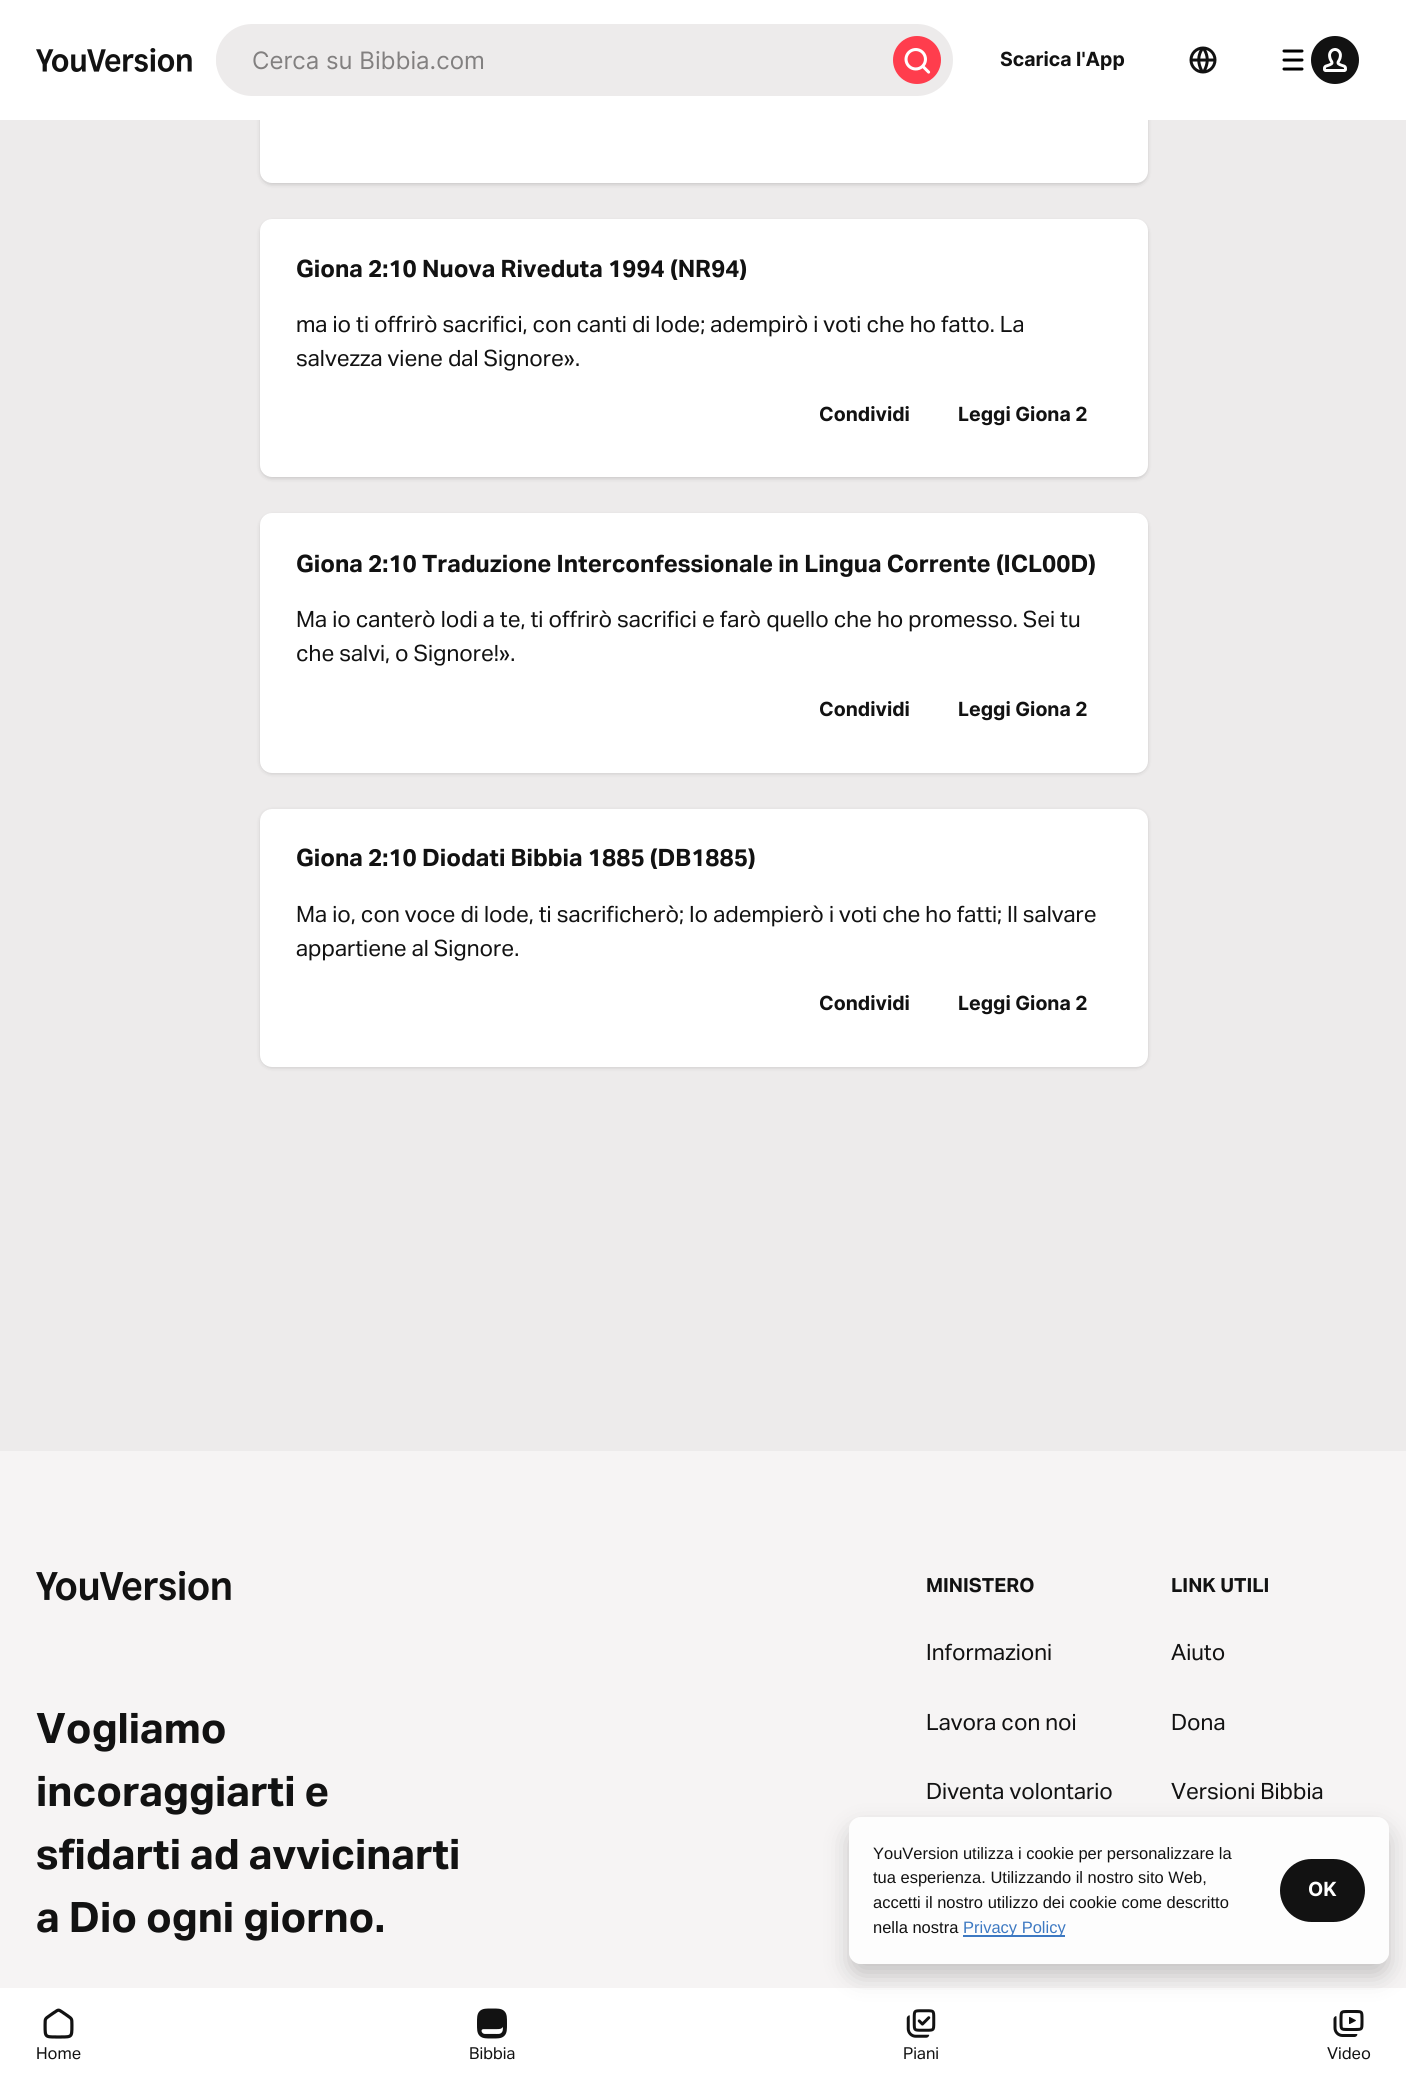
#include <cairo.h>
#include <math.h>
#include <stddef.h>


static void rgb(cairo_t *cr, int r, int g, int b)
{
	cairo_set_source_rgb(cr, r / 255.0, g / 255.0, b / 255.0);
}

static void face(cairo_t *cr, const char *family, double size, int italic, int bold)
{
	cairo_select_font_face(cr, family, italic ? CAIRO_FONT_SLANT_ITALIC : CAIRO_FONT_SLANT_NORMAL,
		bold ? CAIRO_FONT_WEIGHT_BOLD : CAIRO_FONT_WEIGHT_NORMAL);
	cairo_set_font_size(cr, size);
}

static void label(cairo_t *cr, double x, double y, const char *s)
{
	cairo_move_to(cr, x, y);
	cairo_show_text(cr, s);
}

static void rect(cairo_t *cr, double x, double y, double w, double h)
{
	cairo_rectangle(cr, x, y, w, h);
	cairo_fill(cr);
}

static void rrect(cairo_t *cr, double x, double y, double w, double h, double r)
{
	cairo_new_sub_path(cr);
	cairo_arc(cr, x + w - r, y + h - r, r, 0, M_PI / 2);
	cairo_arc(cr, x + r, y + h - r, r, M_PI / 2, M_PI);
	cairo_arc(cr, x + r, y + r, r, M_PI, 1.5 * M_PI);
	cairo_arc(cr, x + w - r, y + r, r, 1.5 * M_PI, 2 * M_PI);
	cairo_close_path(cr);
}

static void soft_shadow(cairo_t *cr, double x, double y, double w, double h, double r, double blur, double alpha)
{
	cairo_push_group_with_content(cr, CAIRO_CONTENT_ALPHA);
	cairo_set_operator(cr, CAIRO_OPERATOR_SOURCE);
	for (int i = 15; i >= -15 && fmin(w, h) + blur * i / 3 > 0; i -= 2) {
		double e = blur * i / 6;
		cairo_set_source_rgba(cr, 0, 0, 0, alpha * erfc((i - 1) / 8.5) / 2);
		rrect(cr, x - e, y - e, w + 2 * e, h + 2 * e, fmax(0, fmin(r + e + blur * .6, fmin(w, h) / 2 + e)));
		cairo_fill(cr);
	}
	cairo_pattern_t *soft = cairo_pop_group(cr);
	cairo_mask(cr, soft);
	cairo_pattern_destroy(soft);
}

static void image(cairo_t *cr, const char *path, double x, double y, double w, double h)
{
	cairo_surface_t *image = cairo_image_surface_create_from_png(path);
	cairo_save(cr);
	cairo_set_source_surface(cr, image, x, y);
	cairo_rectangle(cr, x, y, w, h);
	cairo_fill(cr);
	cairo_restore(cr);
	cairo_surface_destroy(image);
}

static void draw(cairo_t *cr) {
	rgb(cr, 237, 235, 235);
	cairo_paint(cr);
	rgb(cr, 18, 18, 18);
	soft_shadow(cr, 260, -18, 888, 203, 12, 2, 0.15);
	rgb(cr, 255, 255, 255);
	rrect(cr, 260, -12, 888, 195, 12);
	cairo_fill(cr);
	rect(cr, 0, 0, 1406, 120);
	image(cr, "image0.png", 36, 48, 156, 24);
	rgb(cr, 237, 235, 235);
	rrect(cr, 216, 24, 737, 72, 36);
	cairo_fill(cr);
	rrect(cr, 216, 36, 665, 48, 24);
	cairo_fill(cr);
	face(cr, "Inter", 24, 0, 0);
	rgb(cr, 130, 128, 128);
	label(cr, 252, 69, "Cerca su Bibbia.com");
	rgb(cr, 255, 61, 77);
	cairo_new_path(cr);
	cairo_arc(cr, 917, 60, 24, 0, 2 * M_PI);
	cairo_fill(cr);
	image(cr, "image1.png", 904, 48, 27, 26);
	face(cr, "Inter", 19.5, 0, 1);
	rgb(cr, 18, 18, 18);
	label(cr, 1000, 66, "Scarica l'App");
	image(cr, "image2.png", 1189, 46, 28, 28);
	image(cr, "image3.png", 1282, 49, 22, 22);
	cairo_arc(cr, 1335, 60, 24, 0, 2 * M_PI);
	cairo_fill(cr);
	image(cr, "image4.png", 1323, 48, 24, 24);
	rgb(cr, 18, 18, 18);
	soft_shadow(cr, 260, 221, 888, 258, 12, 2, 0.15);
	rgb(cr, 255, 255, 255);
	rrect(cr, 260, 219, 888, 258, 12);
	cairo_fill(cr);
	face(cr, "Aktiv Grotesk", 24, 0, 1);
	rgb(cr, 18, 18, 18);
	label(cr, 296, 277, "Giona 2:10 Nuova Riveduta 1994 (NR94)");
	face(cr, "Aktiv Grotesk", 22.5, 0, 0);
	label(cr, 296, 332, "ma io ti offrirò sacrifici, con canti di lode; adempirò i voti che ho fatto. La");
	label(cr, 296, 366, "salvezza viene dal Signore».");
	face(cr, "Inter", 19.5, 0, 1);
	label(cr, 819, 421, "Condividi");
	label(cr, 958, 421, "Leggi Giona 2");
	rgb(cr, 18, 18, 18);
	soft_shadow(cr, 260, 515, 888, 259, 12, 2, 0.15);
	rgb(cr, 255, 255, 255);
	rrect(cr, 260, 513, 888, 260, 12);
	cairo_fill(cr);
	face(cr, "Aktiv Grotesk", 24, 0, 1);
	rgb(cr, 18, 18, 18);
	label(cr, 296, 572, "Giona 2:10 Traduzione Interconfessionale in Lingua Corrente (ICL00D)");
	face(cr, "Aktiv Grotesk", 22.5, 0, 0);
	label(cr, 296, 627, "Ma io canterò lodi a te, ti offrirò sacrifici e farò quello che ho promesso. Sei tu");
	label(cr, 296, 661, "che salvi, o Signore!».");
	face(cr, "Inter", 19.5, 0, 1);
	label(cr, 819, 716, "Condividi");
	label(cr, 958, 716, "Leggi Giona 2");
	rgb(cr, 18, 18, 18);
	soft_shadow(cr, 260, 810, 888, 258, 12, 2, 0.15);
	rgb(cr, 255, 255, 255);
	rrect(cr, 260, 809, 888, 258, 12);
	cairo_fill(cr);
	face(cr, "Aktiv Grotesk", 24, 0, 1);
	rgb(cr, 18, 18, 18);
	label(cr, 296, 866, "Giona 2:10 Diodati Bibbia 1885 (DB1885)");
	face(cr, "Aktiv Grotesk", 22.5, 0, 0);
	label(cr, 296, 922, "Ma io, con voce di lode, ti sacrificherò; Io adempierò i voti che ho fatti; Il salvare");
	label(cr, 296, 956, "appartiene al Signore.");
	face(cr, "Inter", 19.5, 0, 1);
	label(cr, 819, 1010, "Condividi");
	label(cr, 958, 1010, "Leggi Giona 2");
	rgb(cr, 246, 244, 244);
	rect(cr, 0, 1451, 1406, 537);
	face(cr, "Aktiv Grotesk", 19.5, 0, 1);
	rgb(cr, 18, 18, 18);
	label(cr, 926, 1592, "MINISTERO");
	face(cr, "Aktiv Grotesk", 22.5, 0, 0);
	label(cr, 926, 1660, "Informazioni");
	label(cr, 926, 1730, "Lavora con noi");
	label(cr, 926, 1799, "Diventa volontario");
	face(cr, "Aktiv Grotesk", 19.5, 0, 1);
	label(cr, 1171, 1592, "LINK UTILI");
	face(cr, "Aktiv Grotesk", 22.5, 0, 0);
	label(cr, 1171, 1660, "Aiuto");
	label(cr, 1171, 1730, "Dona");
	label(cr, 1171, 1799, "Versioni Bibbia");
	image(cr, "image5.png", 36, 1571, 195, 30);
	face(cr, "Aktiv Grotesk", 42, 0, 1);
	label(cr, 36, 1743, "Vogliamo");
	label(cr, 36, 1806, "incoraggiarti e");
	label(cr, 36, 1869, "sfidarti ad avvicinarti");
	label(cr, 36, 1932, "a Dio ogni giorno.");
	rgb(cr, 255, 255, 255);
	rect(cr, 0, 1988, 1406, 95);
	image(cr, "image8.png", 906, 2009, 30, 29);
	image(cr, "image9.png", 1333, 2010, 31, 27);
	cairo_save(cr);
	cairo_set_fill_rule(cr, CAIRO_FILL_RULE_EVEN_ODD);
	cairo_new_path(cr);
	cairo_move_to(cr, 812, 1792);
	cairo_line_to(cr, 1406, 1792);
	cairo_line_to(cr, 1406, 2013);
	cairo_line_to(cr, 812, 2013);
	cairo_close_path(cr);
	cairo_move_to(cr, 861, 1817);
	cairo_line_to(cr, 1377, 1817);
	cairo_curve_to(cr, 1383.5, 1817, 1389, 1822.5, 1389, 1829);
	cairo_line_to(cr, 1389, 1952);
	cairo_curve_to(cr, 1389, 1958.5, 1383.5, 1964, 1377, 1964);
	cairo_line_to(cr, 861, 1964);
	cairo_curve_to(cr, 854.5, 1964, 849, 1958.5, 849, 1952);
	cairo_line_to(cr, 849, 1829);
	cairo_curve_to(cr, 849, 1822.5, 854.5, 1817, 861, 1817);
	cairo_close_path(cr);
	cairo_clip(cr);
	rgb(cr, 0, 0, 0);
	soft_shadow(cr, 849, 1829, 540, 147, 12, 12, 0.2);
	cairo_restore(cr);
	cairo_set_source_rgba(cr, 1, 1, 1, 0.8);
	rrect(cr, 849, 1817, 540, 147, 12);
	cairo_fill(cr);
	face(cr, "Liberation Sans", 16.5, 0, 0);
	rgb(cr, 18, 18, 18);
	label(cr, 873, 1859, "YouVersion utilizza i cookie per personalizzare la");
	label(cr, 873, 1883, "tua esperienza. Utilizzando il nostro sito Web,");
	label(cr, 873, 1908, "accetti il nostro utilizzo dei cookie come descritto");
	label(cr, 873, 1933, "nella nostra");
	rgb(cr, 61, 121, 194);
	rect(cr, 963, 1935, 102, 2);
	label(cr, 963, 1933, "Privacy Policy");
	rgb(cr, 18, 18, 18);
	rrect(cr, 1280, 1859, 85, 63, 31.5);
	cairo_fill(cr);
	face(cr, "Inter", 19.5, 0, 1);
	rgb(cr, 255, 255, 255);
	label(cr, 1308, 1896, "OK");
	image(cr, "image6.png", 43, 2008, 31, 31);
	face(cr, "Aktiv Grotesk", 16.5, 0, 0);
	rgb(cr, 18, 18, 18);
	label(cr, 36, 2059, "Home");
	image(cr, "image7.png", 477, 2008, 30, 31);
	label(cr, 469, 2059, "Bibbia");
	label(cr, 903, 2059, "Piani");
	label(cr, 1327, 2059, "Video");
}

int main(void) {
	cairo_surface_t *surface = cairo_image_surface_create(CAIRO_FORMAT_RGB24, 1406, 2083);
	cairo_t *cr = cairo_create(surface);
	cairo_font_options_t *options = cairo_font_options_create();
	cairo_font_options_set_hint_metrics(options, CAIRO_HINT_METRICS_OFF);
	cairo_font_options_set_hint_style(options, CAIRO_HINT_STYLE_NONE);
	cairo_set_font_options(cr, options);
	cairo_set_miter_limit(cr, 4);
	draw(cr);
	cairo_surface_write_to_png(surface, "render.png");
	cairo_font_options_destroy(options);
	cairo_destroy(cr);
	cairo_surface_destroy(surface);
	return 0;
}
